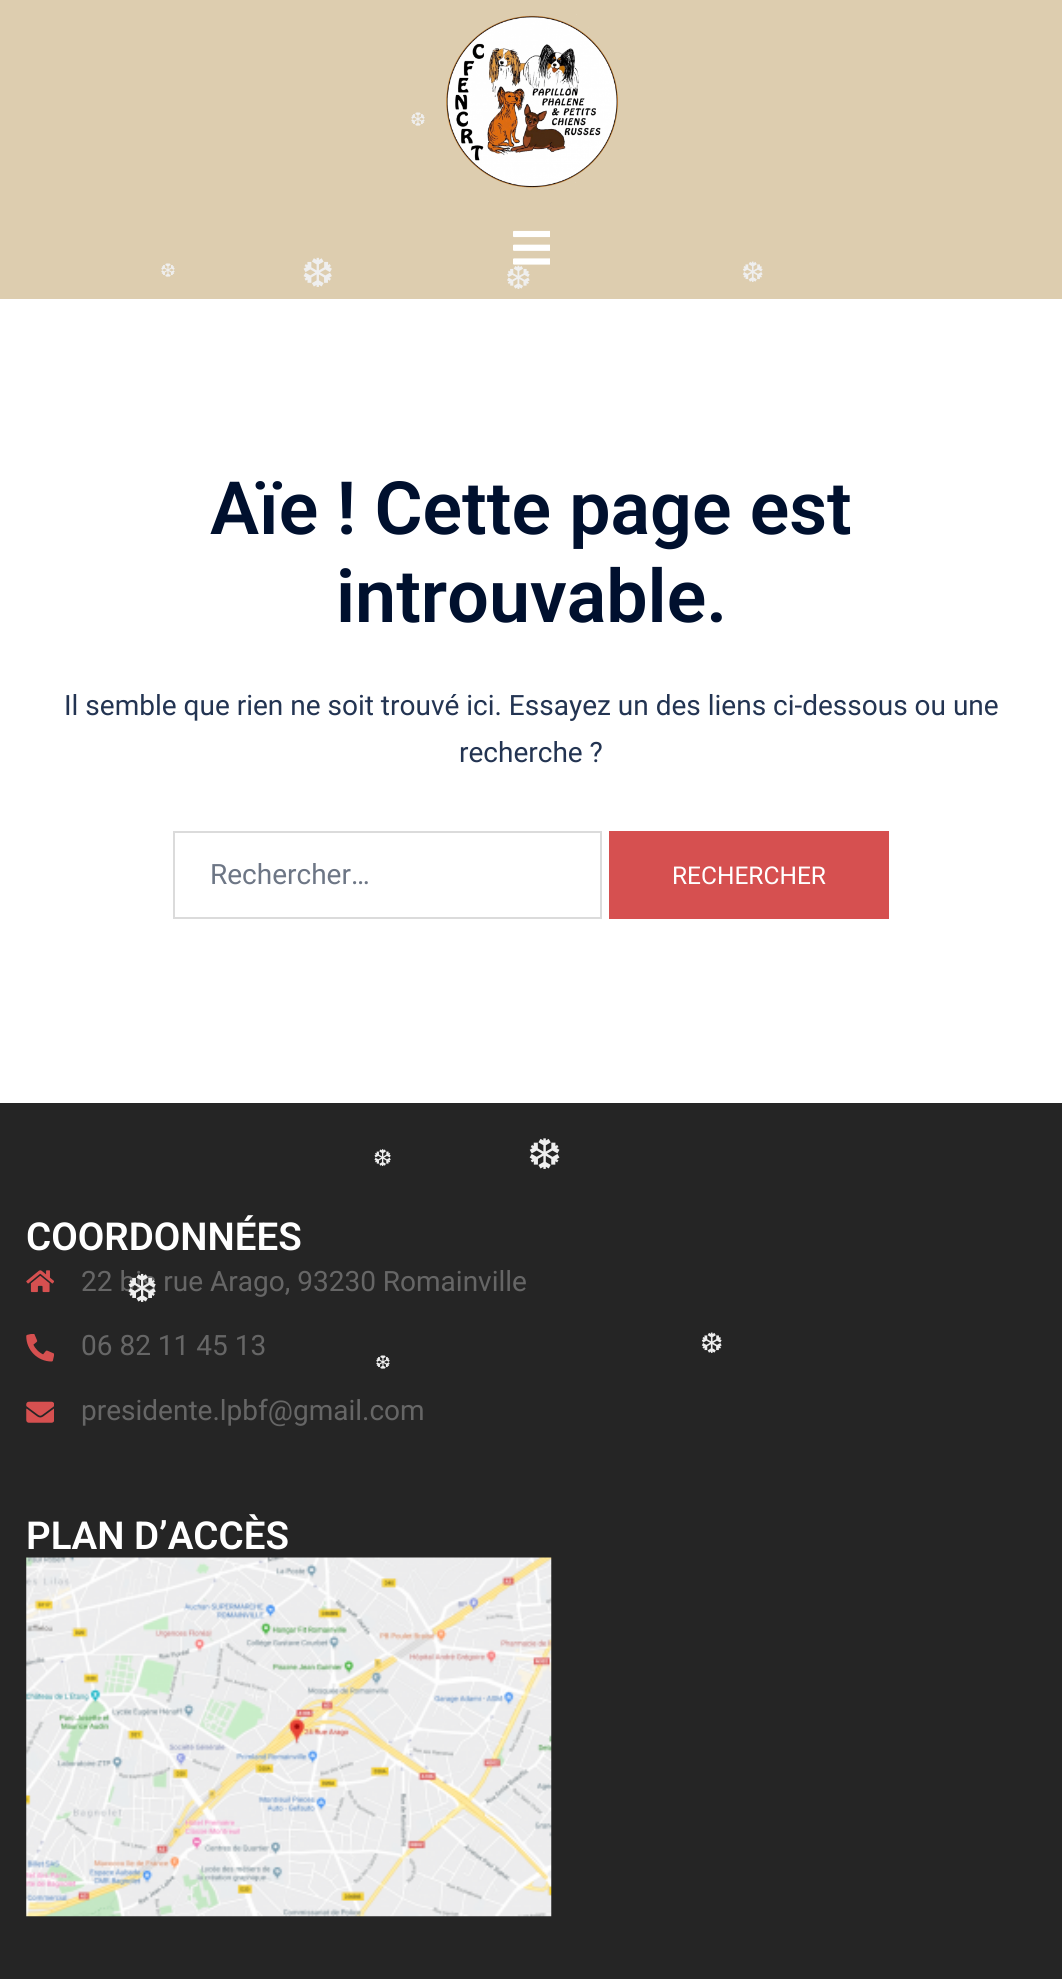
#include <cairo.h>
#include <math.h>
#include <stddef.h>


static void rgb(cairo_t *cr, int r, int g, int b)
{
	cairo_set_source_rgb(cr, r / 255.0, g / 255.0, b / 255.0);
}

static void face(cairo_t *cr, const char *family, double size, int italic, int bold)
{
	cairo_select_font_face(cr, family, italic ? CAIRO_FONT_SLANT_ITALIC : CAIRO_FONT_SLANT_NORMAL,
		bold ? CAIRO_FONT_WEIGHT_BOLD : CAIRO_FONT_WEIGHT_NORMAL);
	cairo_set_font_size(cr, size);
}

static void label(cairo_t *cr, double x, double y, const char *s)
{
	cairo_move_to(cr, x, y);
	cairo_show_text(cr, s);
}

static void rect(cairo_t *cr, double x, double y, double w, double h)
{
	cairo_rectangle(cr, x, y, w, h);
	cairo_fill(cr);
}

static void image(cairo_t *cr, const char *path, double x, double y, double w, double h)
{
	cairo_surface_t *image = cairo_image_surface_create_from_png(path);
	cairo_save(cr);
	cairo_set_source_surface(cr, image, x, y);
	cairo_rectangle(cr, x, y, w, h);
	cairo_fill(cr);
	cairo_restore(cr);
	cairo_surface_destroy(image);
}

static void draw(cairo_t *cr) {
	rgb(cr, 255, 255, 255);
	cairo_paint(cr);
	rgb(cr, 221, 205, 175);
	rect(cr, 0, 0, 1062, 299);
	face(cr, "DejaVu Sans", 19, 0, 0);
	rgb(cr, 239, 239, 239);
	label(cr, 410, 126, "❆");
	label(cr, 160, 277, "❆");
	face(cr, "DejaVu Sans", 40, 0, 0);
	label(cr, 301, 287, "❆");
	face(cr, "DejaVu Sans", 32, 0, 0);
	label(cr, 505, 289, "❆");
	face(cr, "DejaVu Sans", 28, 0, 0);
	label(cr, 741, 282, "❆");
	rgb(cr, 37, 37, 37);
	rect(cr, 0, 1103, 1062, 876);
	face(cr, "DejaVu Sans", 23, 0, 0);
	rgb(cr, 239, 239, 239);
	label(cr, 373, 1166, "❆");
	face(cr, "DejaVu Sans", 42, 0, 0);
	label(cr, 527, 1169, "❆");
	face(cr, "Roboto", 28, 0, 0);
	rgb(cr, 102, 102, 102);
	label(cr, 81, 1291, "22 bis rue Arago, 93230 Romainville");
	face(cr, "DejaVu Sans", 38.5, 0, 0);
	rgb(cr, 239, 239, 239);
	label(cr, 126, 1302, "❆");
	face(cr, "DejaVu Sans", 28, 0, 0);
	label(cr, 700, 1353, "❆");
	face(cr, "DejaVu Sans", 19, 0, 0);
	label(cr, 375, 1369, "❆");
	image(cr, "image0.png", 446, 14, 173, 174);
	image(cr, "image1.png", 513, 230, 37, 35);
	face(cr, "Roboto SemiBold", 73.5, 0, 0);
	rgb(cr, 0, 16, 46);
	label(cr, 210, 534, "Aïe ! Cette page est");
	label(cr, 336, 622, "introuvable.");
	face(cr, "Roboto", 28, 0, 0);
	rgb(cr, 35, 52, 82);
	label(cr, 64, 715, "Il semble que rien ne soit trouvé ici. Essayez un des liens ci-dessous ou une");
	label(cr, 459, 762, "recherche ?");
	cairo_rectangle(cr, 174, 832, 427, 86);
	rgb(cr, 219, 219, 219);
	cairo_stroke(cr);
	rgb(cr, 109, 118, 133);
	label(cr, 210, 884, "Rechercher…");
	rgb(cr, 214, 80, 80);
	rect(cr, 609, 831, 280, 88);
	face(cr, "Roboto", 24.5, 0, 0);
	rgb(cr, 255, 255, 255);
	label(cr, 672, 884, "RECHERCHER");
	face(cr, "Roboto SemiBold", 38.5, 0, 0);
	label(cr, 26, 1250, "COORDONNÉES");
	image(cr, "image2.png", 26, 1270, 28, 23);
	image(cr, "image3.png", 26, 1334, 28, 28);
	face(cr, "Roboto", 28, 0, 0);
	rgb(cr, 102, 102, 102);
	label(cr, 81, 1355, "06 82 11 45 13");
	image(cr, "image4.png", 26, 1401, 28, 22);
	label(cr, 81, 1420, "presidente.lpbf@gmail.com");
	face(cr, "Roboto SemiBold", 38.5, 0, 0);
	rgb(cr, 255, 255, 255);
	label(cr, 26, 1549, "PLAN D’ACCÈS");
	image(cr, "image5.png", 26, 1557, 526, 360);
}

int main(void) {
	cairo_surface_t *surface = cairo_image_surface_create(CAIRO_FORMAT_RGB24, 1062, 1979);
	cairo_t *cr = cairo_create(surface);
	cairo_font_options_t *options = cairo_font_options_create();
	cairo_font_options_set_hint_metrics(options, CAIRO_HINT_METRICS_OFF);
	cairo_font_options_set_hint_style(options, CAIRO_HINT_STYLE_NONE);
	cairo_set_font_options(cr, options);
	cairo_set_miter_limit(cr, 4);
	draw(cr);
	cairo_surface_write_to_png(surface, "render.png");
	cairo_font_options_destroy(options);
	cairo_destroy(cr);
	cairo_surface_destroy(surface);
	return 0;
}
